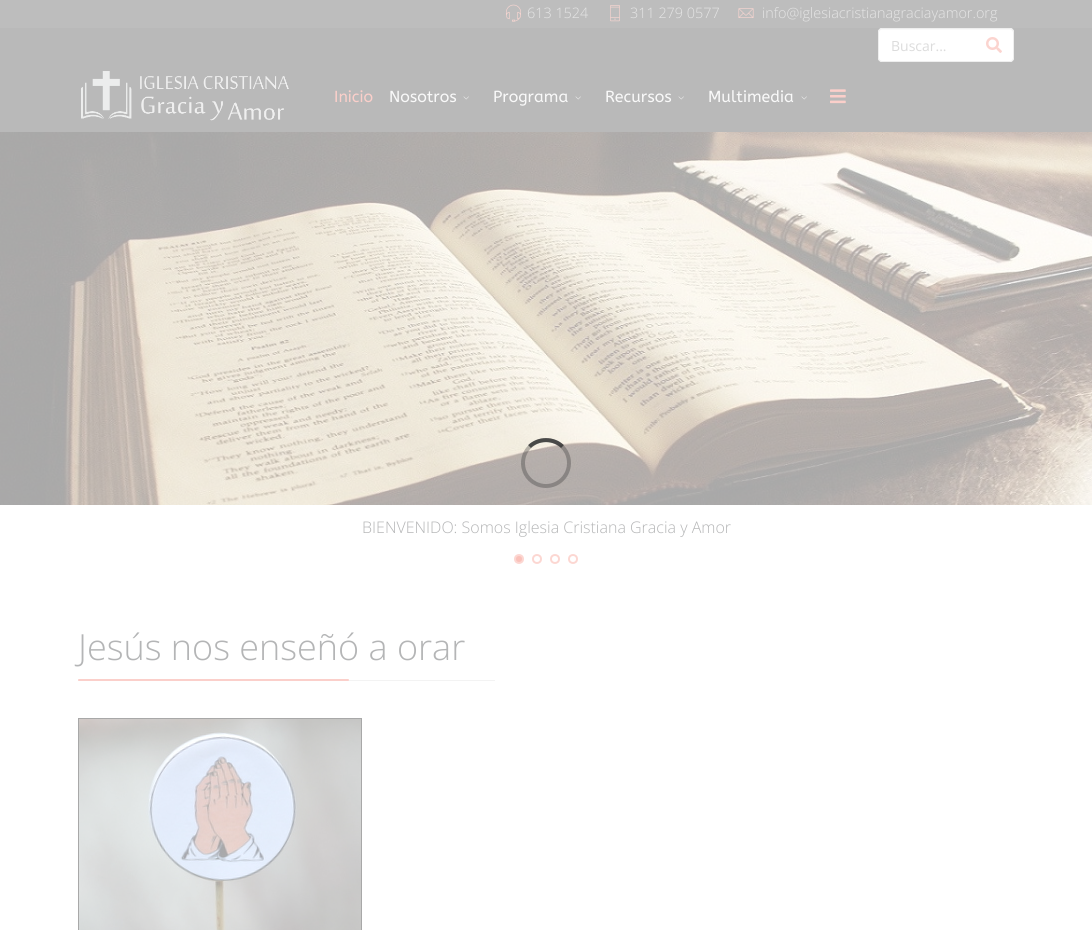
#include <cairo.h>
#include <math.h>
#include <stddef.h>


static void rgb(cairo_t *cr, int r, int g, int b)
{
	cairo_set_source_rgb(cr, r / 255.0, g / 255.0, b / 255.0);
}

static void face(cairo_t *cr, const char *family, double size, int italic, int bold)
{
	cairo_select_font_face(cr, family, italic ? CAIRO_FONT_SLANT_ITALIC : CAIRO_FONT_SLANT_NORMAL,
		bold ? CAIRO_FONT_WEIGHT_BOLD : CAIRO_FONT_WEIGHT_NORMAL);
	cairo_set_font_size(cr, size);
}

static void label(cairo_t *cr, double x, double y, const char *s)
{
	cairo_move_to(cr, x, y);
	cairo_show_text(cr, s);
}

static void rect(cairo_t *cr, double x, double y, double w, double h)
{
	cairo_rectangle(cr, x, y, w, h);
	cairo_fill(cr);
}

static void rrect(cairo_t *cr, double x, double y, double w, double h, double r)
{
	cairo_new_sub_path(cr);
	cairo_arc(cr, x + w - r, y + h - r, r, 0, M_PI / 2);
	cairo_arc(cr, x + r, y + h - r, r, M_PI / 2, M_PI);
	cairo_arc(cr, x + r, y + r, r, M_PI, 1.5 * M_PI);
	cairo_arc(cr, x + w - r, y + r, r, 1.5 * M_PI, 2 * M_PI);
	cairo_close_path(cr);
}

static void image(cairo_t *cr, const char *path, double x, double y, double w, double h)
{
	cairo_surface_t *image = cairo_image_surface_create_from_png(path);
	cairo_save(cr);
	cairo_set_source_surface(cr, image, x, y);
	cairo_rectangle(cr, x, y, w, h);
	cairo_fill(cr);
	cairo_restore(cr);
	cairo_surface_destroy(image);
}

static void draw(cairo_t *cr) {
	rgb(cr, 255, 255, 255);
	cairo_paint(cr);
	rgb(cr, 189, 189, 189);
	rect(cr, 0, 0, 1092, 28);
	image(cr, "image0.png", 506, 4, 15, 18);
	face(cr, "Open Sans Light", 14.4, 0, 0);
	rgb(cr, 229, 229, 229);
	label(cr, 527, 18, "613 1524");
	image(cr, "image1.png", 610, 5, 10, 17);
	label(cr, 630, 18, "311 279 0577");
	image(cr, "image2.png", 738, 8, 16, 10);
	label(cr, 762, 18, "info@iglesiacristianagraciayamor.org");
	rgb(cr, 185, 185, 185);
	rect(cr, 0, 28, 1092, 104);
	rgb(cr, 255, 255, 255);
	rrect(cr, 878, 28, 136, 34, 4);
	cairo_fill(cr);
	rgb(cr, 249, 249, 249);
	cairo_new_path(cr);
	cairo_move_to(cr, 882, 30);
	cairo_line_to(cr, 1010, 30);
	cairo_curve_to(cr, 1012, 30, 1013, 31, 1013, 33);
	cairo_curve_to(cr, 1013, 31, 1013, 29, 1011, 29);
	cairo_line_to(cr, 881, 29);
	cairo_curve_to(cr, 879, 29, 879, 31, 879, 33);
	cairo_curve_to(cr, 879, 31, 880, 30, 882, 30);
	cairo_close_path(cr);
	cairo_fill(cr);
	rrect(cr, 878.5, 28.5, 135, 33, 3.5);
	rgb(cr, 238, 238, 238);
	cairo_set_line_width(cr, 1);
	cairo_stroke(cr);
	face(cr, "Open Sans", 14, 0, 0);
	rgb(cr, 220, 220, 220);
	label(cr, 891, 51, "Buscar...");
	image(cr, "image3.png", 986, 37, 16, 16);
	image(cr, "image4.png", 81, 71, 208, 50);
	face(cr, "ABeeZee", 16, 0, 0);
	rgb(cr, 251, 207, 202);
	label(cr, 334, 102, "Inicio");
	rgb(cr, 249, 249, 249);
	label(cr, 389, 102, "Nosotros");
	image(cr, "image5.png", 463, 96, 6, 4);
	label(cr, 493, 102, "Programa");
	image(cr, "image5.png", 575, 96, 6, 4);
	label(cr, 605, 102, "Recursos");
	image(cr, "image5.png", 678, 96, 6, 4);
	label(cr, 708, 102, "Multimedia");
	image(cr, "image5.png", 801, 96, 6, 4);
	image(cr, "image6.png", 830, 89, 16, 15);
	image(cr, "image7.png", 0, 132, 1092, 373);
	cairo_arc(cr, 546, 463, 23, 0, 2 * M_PI);
	cairo_set_source_rgba(cr, 0.2, 0.2, 0.2, 0.33);
	cairo_set_line_width(cr, 4);
	cairo_stroke(cr);
	cairo_new_path(cr);
	cairo_move_to(cr, 529.5, 446.5);
	cairo_curve_to(cr, 538.5, 438, 553.5, 438, 562.5, 446.5);
	cairo_set_source_rgba(cr, 0.2, 0.2, 0.2, 0.82);
	cairo_stroke(cr);
	face(cr, "Open Sans Light", 16, 0, 0);
	rgb(cr, 180, 181, 182);
	label(cr, 362, 533, "BIENVENIDO: Somos Iglesia Cristiana Gracia y Amor");
	rgb(cr, 250, 193, 186);
	cairo_new_path(cr);
	cairo_arc(cr, 519, 559, 4, 0, 2 * M_PI);
	cairo_fill_preserve(cr);
	rgb(cr, 252, 215, 210);
	cairo_set_line_width(cr, 2);
	cairo_stroke(cr);
	cairo_arc(cr, 537, 559, 4, 0, 2 * M_PI);
	cairo_stroke(cr);
	cairo_arc(cr, 555, 559, 4, 0, 2 * M_PI);
	cairo_stroke(cr);
	cairo_arc(cr, 573, 559, 4, 0, 2 * M_PI);
	cairo_stroke(cr);
	rgb(cr, 243, 243, 243);
	rect(cr, 78, 680, 417, 1);
	face(cr, "Open Sans Light", 36, 0, 0);
	rgb(cr, 180, 181, 182);
	label(cr, 78, 660, "Jesús nos enseñó a orar");
	rgb(cr, 251, 207, 202);
	rrect(cr, 78, 679, 271, 2, 1);
	cairo_fill(cr);
	cairo_rectangle(cr, 78.5, 718.5, 283, 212);
	rgb(cr, 168, 168, 168);
	cairo_set_line_width(cr, 1);
	cairo_stroke(cr);
	image(cr, "image8.png", 79, 719, 282, 211);
}

int main(void) {
	cairo_surface_t *surface = cairo_image_surface_create(CAIRO_FORMAT_RGB24, 1092, 930);
	cairo_t *cr = cairo_create(surface);
	cairo_font_options_t *options = cairo_font_options_create();
	cairo_font_options_set_hint_metrics(options, CAIRO_HINT_METRICS_OFF);
	cairo_font_options_set_hint_style(options, CAIRO_HINT_STYLE_NONE);
	cairo_set_font_options(cr, options);
	cairo_set_miter_limit(cr, 4);
	draw(cr);
	cairo_surface_write_to_png(surface, "render.png");
	cairo_font_options_destroy(options);
	cairo_destroy(cr);
	cairo_surface_destroy(surface);
	return 0;
}
